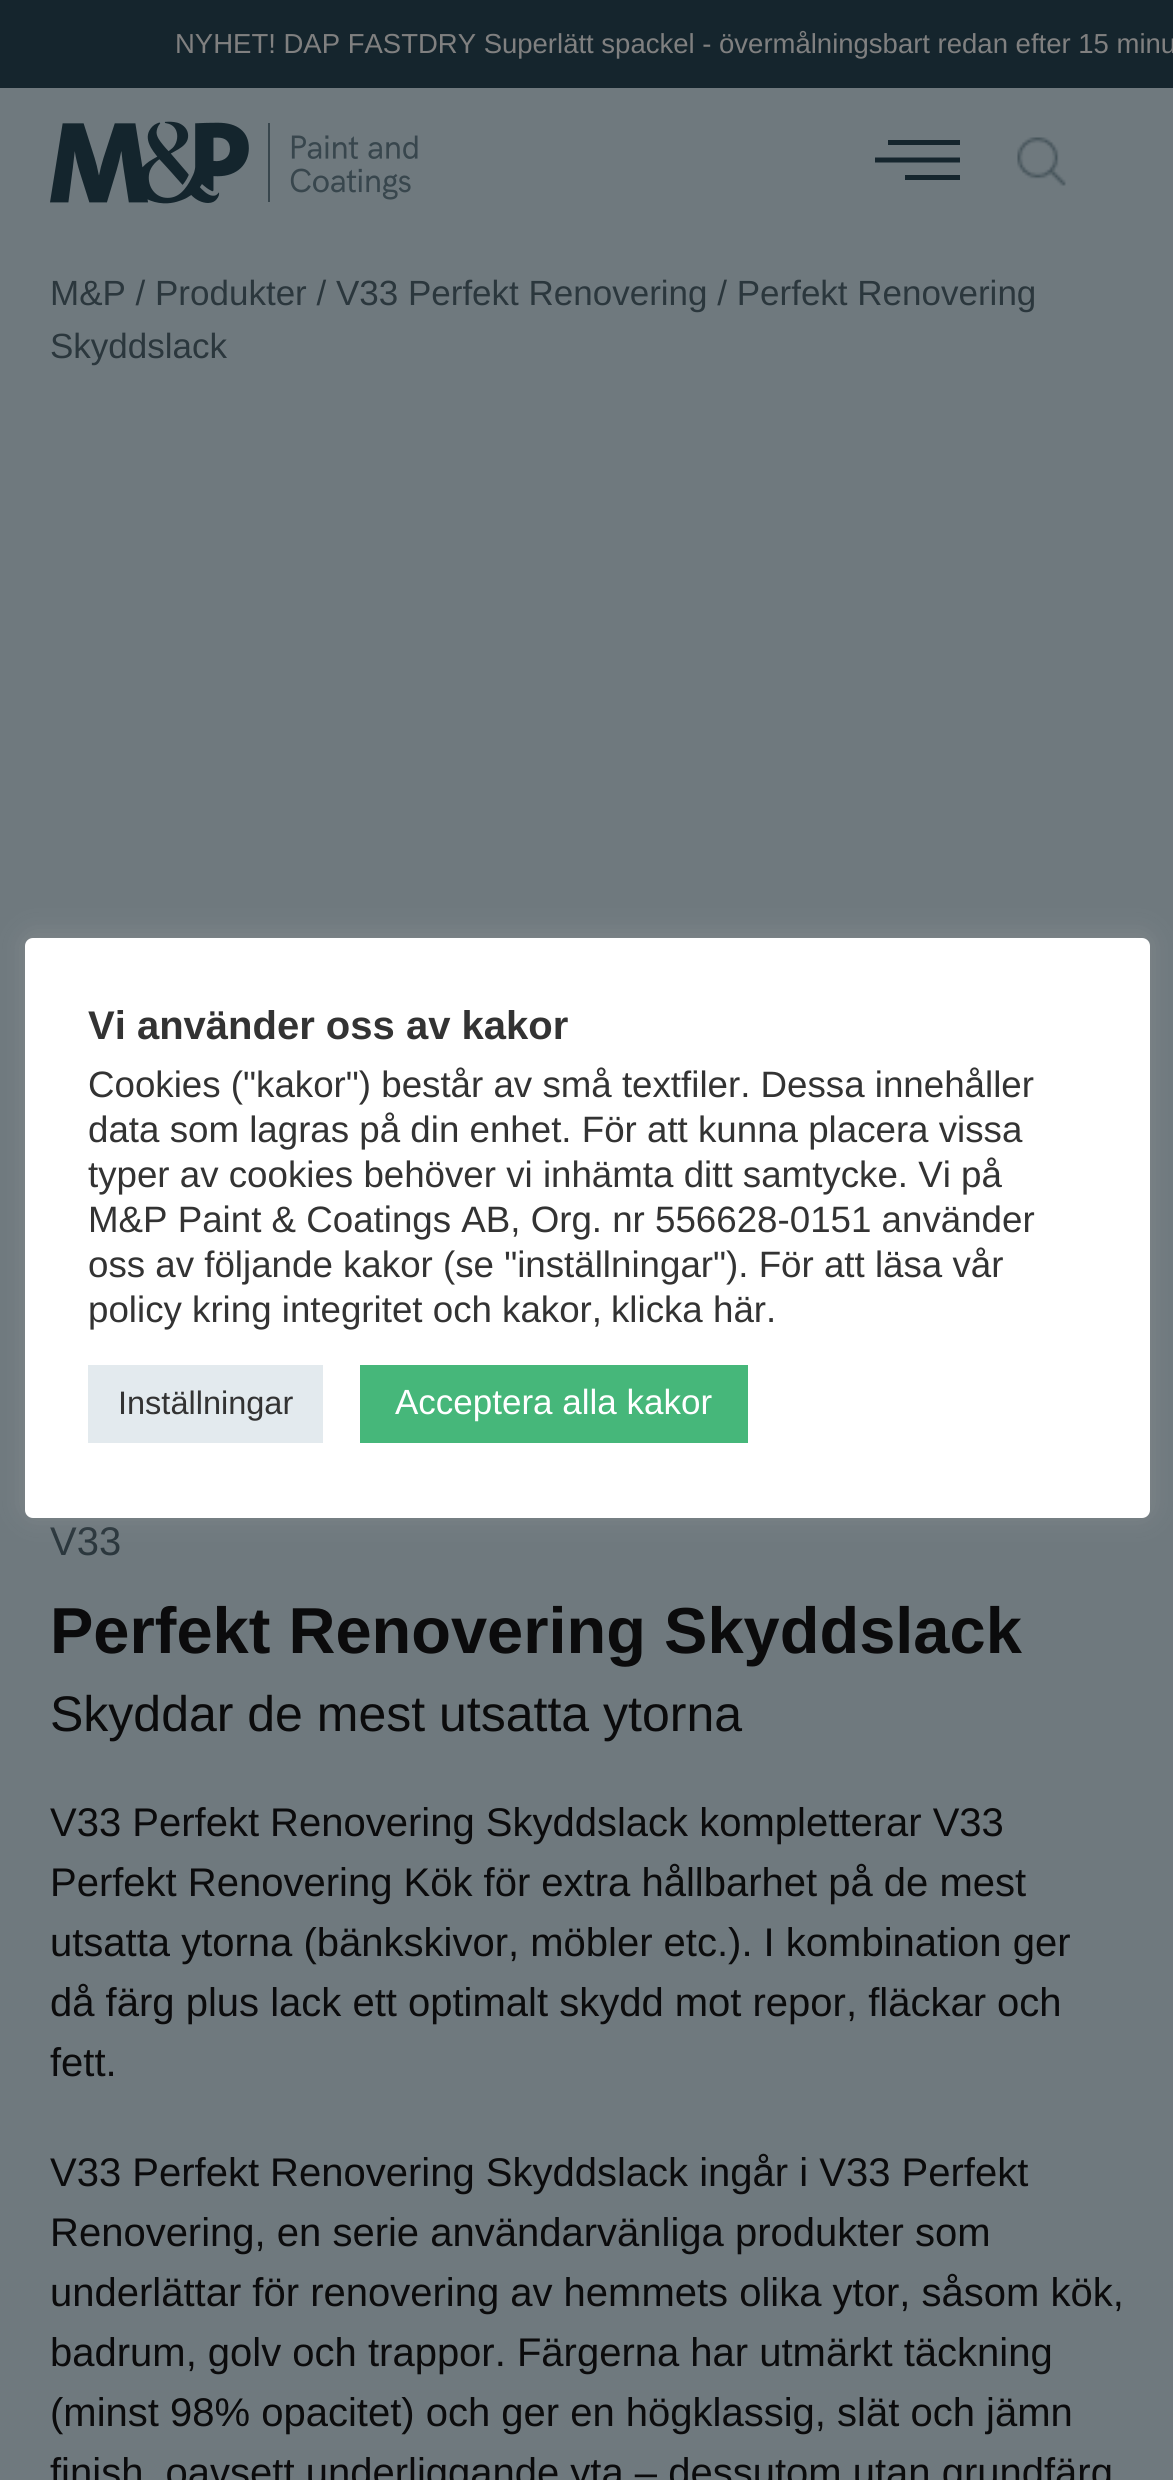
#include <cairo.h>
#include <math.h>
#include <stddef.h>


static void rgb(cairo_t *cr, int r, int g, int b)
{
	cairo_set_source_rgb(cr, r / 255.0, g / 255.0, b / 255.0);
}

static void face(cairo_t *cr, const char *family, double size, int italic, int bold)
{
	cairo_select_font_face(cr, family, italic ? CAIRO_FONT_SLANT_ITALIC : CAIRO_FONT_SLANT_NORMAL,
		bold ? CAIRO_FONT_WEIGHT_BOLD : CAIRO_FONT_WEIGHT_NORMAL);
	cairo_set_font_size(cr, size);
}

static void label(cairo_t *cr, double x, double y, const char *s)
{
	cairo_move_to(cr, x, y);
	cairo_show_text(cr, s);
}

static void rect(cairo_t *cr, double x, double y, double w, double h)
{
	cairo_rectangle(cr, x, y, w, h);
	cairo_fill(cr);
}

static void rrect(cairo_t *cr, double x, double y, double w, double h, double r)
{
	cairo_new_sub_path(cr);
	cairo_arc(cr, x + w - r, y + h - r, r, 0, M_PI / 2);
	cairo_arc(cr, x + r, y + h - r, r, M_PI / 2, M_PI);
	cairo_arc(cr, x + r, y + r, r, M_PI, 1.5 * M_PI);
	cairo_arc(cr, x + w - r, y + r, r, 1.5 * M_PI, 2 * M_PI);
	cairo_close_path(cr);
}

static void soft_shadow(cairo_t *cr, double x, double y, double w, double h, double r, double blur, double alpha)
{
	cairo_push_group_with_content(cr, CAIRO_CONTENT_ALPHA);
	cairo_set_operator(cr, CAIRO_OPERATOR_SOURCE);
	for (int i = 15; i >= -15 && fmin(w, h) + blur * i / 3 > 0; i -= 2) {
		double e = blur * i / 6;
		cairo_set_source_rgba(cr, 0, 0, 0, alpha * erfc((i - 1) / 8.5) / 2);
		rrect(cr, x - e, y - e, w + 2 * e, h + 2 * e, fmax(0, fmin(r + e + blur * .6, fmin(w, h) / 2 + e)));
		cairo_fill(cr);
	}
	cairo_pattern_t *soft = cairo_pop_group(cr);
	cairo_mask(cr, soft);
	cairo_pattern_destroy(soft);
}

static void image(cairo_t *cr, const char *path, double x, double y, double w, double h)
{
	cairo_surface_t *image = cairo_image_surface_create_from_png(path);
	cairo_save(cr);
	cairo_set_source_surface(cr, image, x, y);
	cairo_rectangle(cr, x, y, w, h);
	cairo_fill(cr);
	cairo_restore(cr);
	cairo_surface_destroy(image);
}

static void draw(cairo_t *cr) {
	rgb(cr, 111, 121, 126);
	cairo_paint(cr);
	rgb(cr, 21, 37, 45);
	rect(cr, 0, 0, 1173, 88);
	face(cr, "Liberation Sans", 27.5, 0, 0);
	rgb(cr, 128, 128, 128);
	label(cr, 175, 53, "NYHET! DAP FASTDRY Superlätt spackel - övermålningsbart redan efter 15 minu");
	image(cr, "image0.png", 50, 121, 368, 83);
	rgb(cr, 21, 37, 45);
	rect(cr, 888, 140, 72, 5);
	cairo_save(cr);
	cairo_rectangle(cr, 875, 140, 85, 40);
	cairo_clip(cr);
	cairo_new_path(cr);
	cairo_move_to(cr, 875, 160);
	cairo_line_to(cr, 960.5, 160);
	cairo_set_line_width(cr, 5);
	cairo_stroke(cr);
	cairo_restore(cr);
	rect(cr, 905, 175, 55, 5);
	image(cr, "image1.png", 1017, 137, 49, 49);
	face(cr, "Liberation Sans", 35, 0, 0);
	rgb(cr, 43, 55, 61);
	label(cr, 50, 305, "M&P / Produkter / V33 Perfekt Renovering / Perfekt Renovering");
	label(cr, 50, 358, "Skyddslack");
	face(cr, "Liberation Sans", 40, 0, 0);
	label(cr, 50, 1555, "V33");
	face(cr, "Liberation Sans", 65, 0, 1);
	rgb(cr, 11, 11, 12);
	label(cr, 50, 1653, "Perfekt Renovering Skyddslack");
	face(cr, "Liberation Sans", 50, 0, 0);
	label(cr, 50, 1731, "Skyddar de mest utsatta ytorna");
	face(cr, "Liberation Sans", 40, 0, 0);
	label(cr, 50, 1836, "V33 Perfekt Renovering Skyddslack kompletterar V33");
	label(cr, 50, 1896, "Perfekt Renovering Kök för extra hållbarhet på de mest");
	label(cr, 50, 1956, "utsatta ytorna (bänkskivor, möbler etc.). I kombination ger");
	label(cr, 50, 2016, "då färg plus lack ett optimalt skydd mot repor, fläckar och");
	label(cr, 50, 2076, "fett.");
	label(cr, 50, 2186, "V33 Perfekt Renovering Skyddslack ingår i V33 Perfekt");
	label(cr, 50, 2246, "Renovering, en serie användarvänliga produkter som");
	label(cr, 50, 2306, "underlättar för renovering av hemmets olika ytor, såsom kök,");
	label(cr, 50, 2366, "badrum, golv och trappor. Färgerna har utmärkt täckning");
	label(cr, 50, 2426, "(minst 98% opacitet) och ger en högklassig, slät och jämn");
	label(cr, 50, 2486, "finish, oavsett underliggande yta – dessutom utan grundfärg");
	rgb(cr, 172, 171, 171);
	soft_shadow(cr, 25, 935, 1125, 580, 8, 12.5, 0.3);
	rgb(cr, 255, 255, 255);
	rrect(cr, 25, 938, 1125, 580, 8);
	cairo_fill(cr);
	face(cr, "Liberation Sans", 40, 0, 1);
	rgb(cr, 51, 51, 51);
	label(cr, 88, 1039, "Vi använder oss av kakor");
	face(cr, "Liberation Sans", 36.7, 0, 0);
	label(cr, 88, 1097, "Cookies (\"kakor\") består av små textfiler. Dessa innehåller");
	label(cr, 88, 1142, "data som lagras på din enhet. För att kunna placera vissa");
	label(cr, 88, 1187, "typer av cookies behöver vi inhämta ditt samtycke. Vi på");
	label(cr, 88, 1232, "M&P Paint & Coatings AB, Org. nr 556628-0151 använder");
	label(cr, 88, 1277, "oss av följande kakor (se \"inställningar\"). För att läsa vår");
	label(cr, 88, 1322, "policy kring integritet och kakor,");
	label(cr, 611, 1322, "klicka här.");
	rgb(cr, 227, 234, 238);
	rect(cr, 88, 1365, 235, 78);
	face(cr, "Liberation Sans", 32.5, 0, 0);
	rgb(cr, 51, 51, 51);
	label(cr, 118, 1414, "Inställningar");
	rgb(cr, 70, 183, 122);
	rect(cr, 360, 1365, 388, 78);
	face(cr, "Liberation Sans", 35, 0, 0);
	rgb(cr, 255, 255, 255);
	label(cr, 395, 1414, "Acceptera alla kakor");
}

int main(void) {
	cairo_surface_t *surface = cairo_image_surface_create(CAIRO_FORMAT_RGB24, 1173, 2480);
	cairo_t *cr = cairo_create(surface);
	cairo_font_options_t *options = cairo_font_options_create();
	cairo_font_options_set_hint_metrics(options, CAIRO_HINT_METRICS_OFF);
	cairo_font_options_set_hint_style(options, CAIRO_HINT_STYLE_NONE);
	cairo_set_font_options(cr, options);
	cairo_set_miter_limit(cr, 4);
	draw(cr);
	cairo_surface_write_to_png(surface, "render.png");
	cairo_font_options_destroy(options);
	cairo_destroy(cr);
	cairo_surface_destroy(surface);
	return 0;
}
